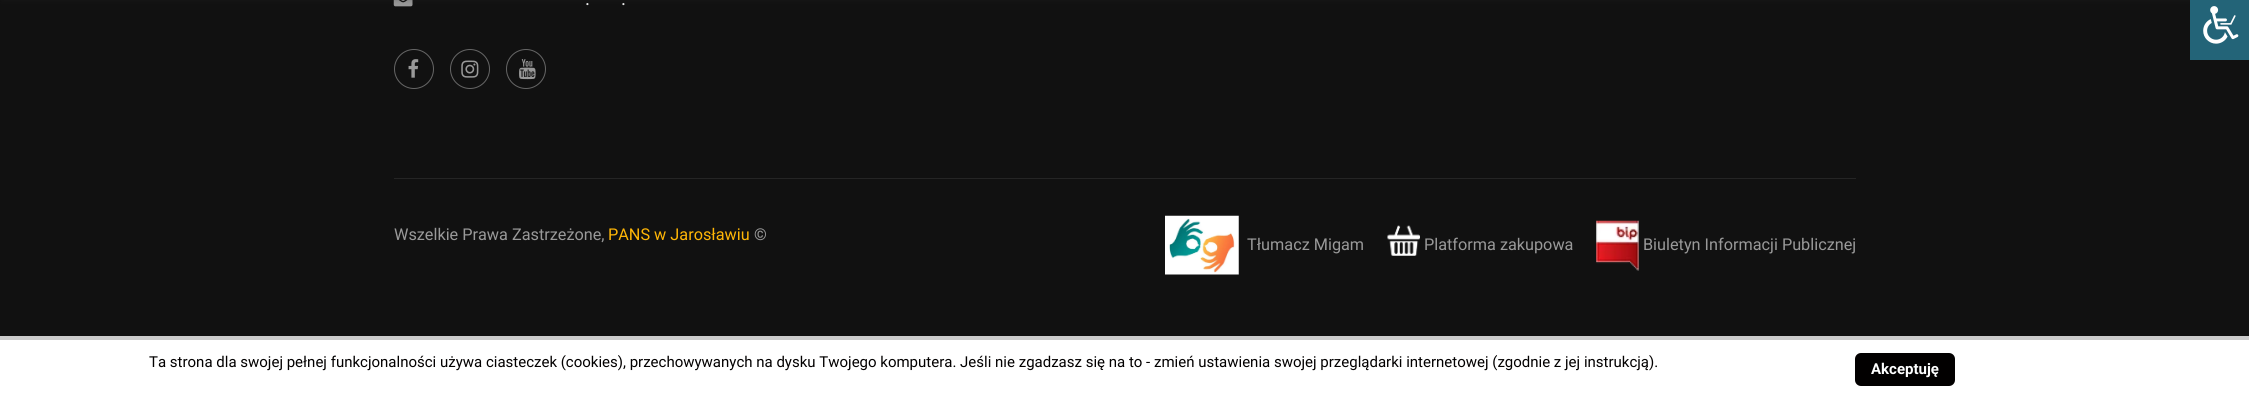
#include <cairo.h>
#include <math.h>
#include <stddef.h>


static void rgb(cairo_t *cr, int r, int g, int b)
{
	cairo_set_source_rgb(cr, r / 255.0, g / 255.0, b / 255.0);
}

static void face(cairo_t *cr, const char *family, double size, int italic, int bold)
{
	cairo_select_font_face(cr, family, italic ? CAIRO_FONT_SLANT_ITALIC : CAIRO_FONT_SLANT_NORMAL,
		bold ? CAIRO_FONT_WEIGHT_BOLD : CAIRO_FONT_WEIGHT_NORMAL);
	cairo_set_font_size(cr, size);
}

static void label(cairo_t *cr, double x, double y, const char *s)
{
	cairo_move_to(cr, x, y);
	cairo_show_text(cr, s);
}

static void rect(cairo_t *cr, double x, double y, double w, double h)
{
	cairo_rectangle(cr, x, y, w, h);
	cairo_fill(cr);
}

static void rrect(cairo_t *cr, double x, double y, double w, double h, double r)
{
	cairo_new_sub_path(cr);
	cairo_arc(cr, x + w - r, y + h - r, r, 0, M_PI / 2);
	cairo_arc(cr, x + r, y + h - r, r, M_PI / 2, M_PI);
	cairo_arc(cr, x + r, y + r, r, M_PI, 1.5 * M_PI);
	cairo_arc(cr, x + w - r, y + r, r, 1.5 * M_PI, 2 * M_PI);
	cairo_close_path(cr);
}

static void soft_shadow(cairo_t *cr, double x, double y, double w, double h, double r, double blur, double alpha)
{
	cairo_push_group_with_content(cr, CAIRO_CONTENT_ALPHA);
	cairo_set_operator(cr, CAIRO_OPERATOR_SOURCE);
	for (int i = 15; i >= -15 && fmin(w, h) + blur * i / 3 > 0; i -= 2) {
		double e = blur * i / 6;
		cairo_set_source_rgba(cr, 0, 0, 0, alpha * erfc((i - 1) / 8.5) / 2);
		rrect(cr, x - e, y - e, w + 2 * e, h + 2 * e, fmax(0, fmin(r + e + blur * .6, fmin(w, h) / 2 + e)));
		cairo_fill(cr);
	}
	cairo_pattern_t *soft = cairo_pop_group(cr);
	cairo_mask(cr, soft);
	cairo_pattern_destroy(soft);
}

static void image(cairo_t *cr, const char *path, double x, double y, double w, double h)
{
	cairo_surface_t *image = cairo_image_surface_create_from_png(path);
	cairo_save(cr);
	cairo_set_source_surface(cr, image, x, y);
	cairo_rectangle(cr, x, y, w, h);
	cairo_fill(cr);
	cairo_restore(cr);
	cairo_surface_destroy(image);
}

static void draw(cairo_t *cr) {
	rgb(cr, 17, 17, 17);
	cairo_paint(cr);
	image(cr, "image0.png", 393, 0, 20, 7);
	rgb(cr, 42, 42, 42);
	soft_shadow(cr, 3, -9, 2245, 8, 0, 3, 0.4);
	face(cr, "Roboto", 19, 0, 0);
	rgb(cr, 231, 231, 231);
	label(cr, 585, 5, ".");
	label(cr, 621, 5, ".");
	cairo_new_path(cr);
	cairo_arc(cr, 414, 69, 19.5, 0, 2 * M_PI);
	rgb(cr, 102, 102, 102);
	cairo_set_line_width(cr, 1);
	cairo_stroke(cr);
	image(cr, "image1.png", 408, 59, 11, 19);
	cairo_arc(cr, 470, 69, 19.5, 0, 2 * M_PI);
	cairo_stroke(cr);
	image(cr, "image2.png", 461, 60, 18, 18);
	cairo_arc(cr, 526, 69, 19.5, 0, 2 * M_PI);
	cairo_stroke(cr);
	image(cr, "image3.png", 519, 59, 17, 21);
	rgb(cr, 37, 37, 37);
	rect(cr, 394, 178, 1462, 1);
	face(cr, "Roboto", 16.25, 0, 0);
	rgb(cr, 153, 153, 153);
	label(cr, 394, 240, "Wszelkie Prawa Zastrzeżone,");
	rgb(cr, 255, 182, 6);
	label(cr, 608, 240, "PANS w Jarosławiu");
	rgb(cr, 153, 153, 153);
	label(cr, 754, 240, "©");
	image(cr, "image4.png", 1165, 215, 74, 60);
	label(cr, 1247, 250, "Tłumacz Migam");
	image(cr, "image5.png", 1387, 225, 33, 31);
	label(cr, 1424, 250, "Platforma zakupowa");
	image(cr, "image6.png", 1596, 220, 43, 51);
	label(cr, 1643, 250, "Biuletyn Informacji Publicznej");
	rgb(cr, 35, 100, 120);
	rect(cr, 2190, 0, 59, 60);
	image(cr, "image7.png", 2203, 6, 36, 38);
	rgb(cr, 255, 255, 255);
	rect(cr, 0, 340, 2249, 58);
	rgb(cr, 204, 204, 204);
	rect(cr, 0, 336, 2249, 4);
	face(cr, "Roboto", 15, 0, 0);
	rgb(cr, 2, 0, 0);
	label(cr, 149, 367, "Ta strona dla swojej pełnej funkcjonalności używa ciasteczek (cookies), przechowywanych na dysku Twojego komputera. Jeśli nie zgadzasz się na to - zmień ustawienia swojej przeglądarki internetowej (zgodnie z jej instrukcją).");
	rrect(cr, 1855, 353, 100, 33, 6);
	cairo_fill(cr);
	face(cr, "Roboto", 15, 0, 1);
	rgb(cr, 255, 255, 255);
	label(cr, 1871, 374, "Akceptuję");
}

int main(void) {
	cairo_surface_t *surface = cairo_image_surface_create(CAIRO_FORMAT_RGB24, 2249, 398);
	cairo_t *cr = cairo_create(surface);
	cairo_font_options_t *options = cairo_font_options_create();
	cairo_font_options_set_hint_metrics(options, CAIRO_HINT_METRICS_OFF);
	cairo_font_options_set_hint_style(options, CAIRO_HINT_STYLE_NONE);
	cairo_set_font_options(cr, options);
	cairo_set_miter_limit(cr, 4);
	draw(cr);
	cairo_surface_write_to_png(surface, "render.png");
	cairo_font_options_destroy(options);
	cairo_destroy(cr);
	cairo_surface_destroy(surface);
	return 0;
}
